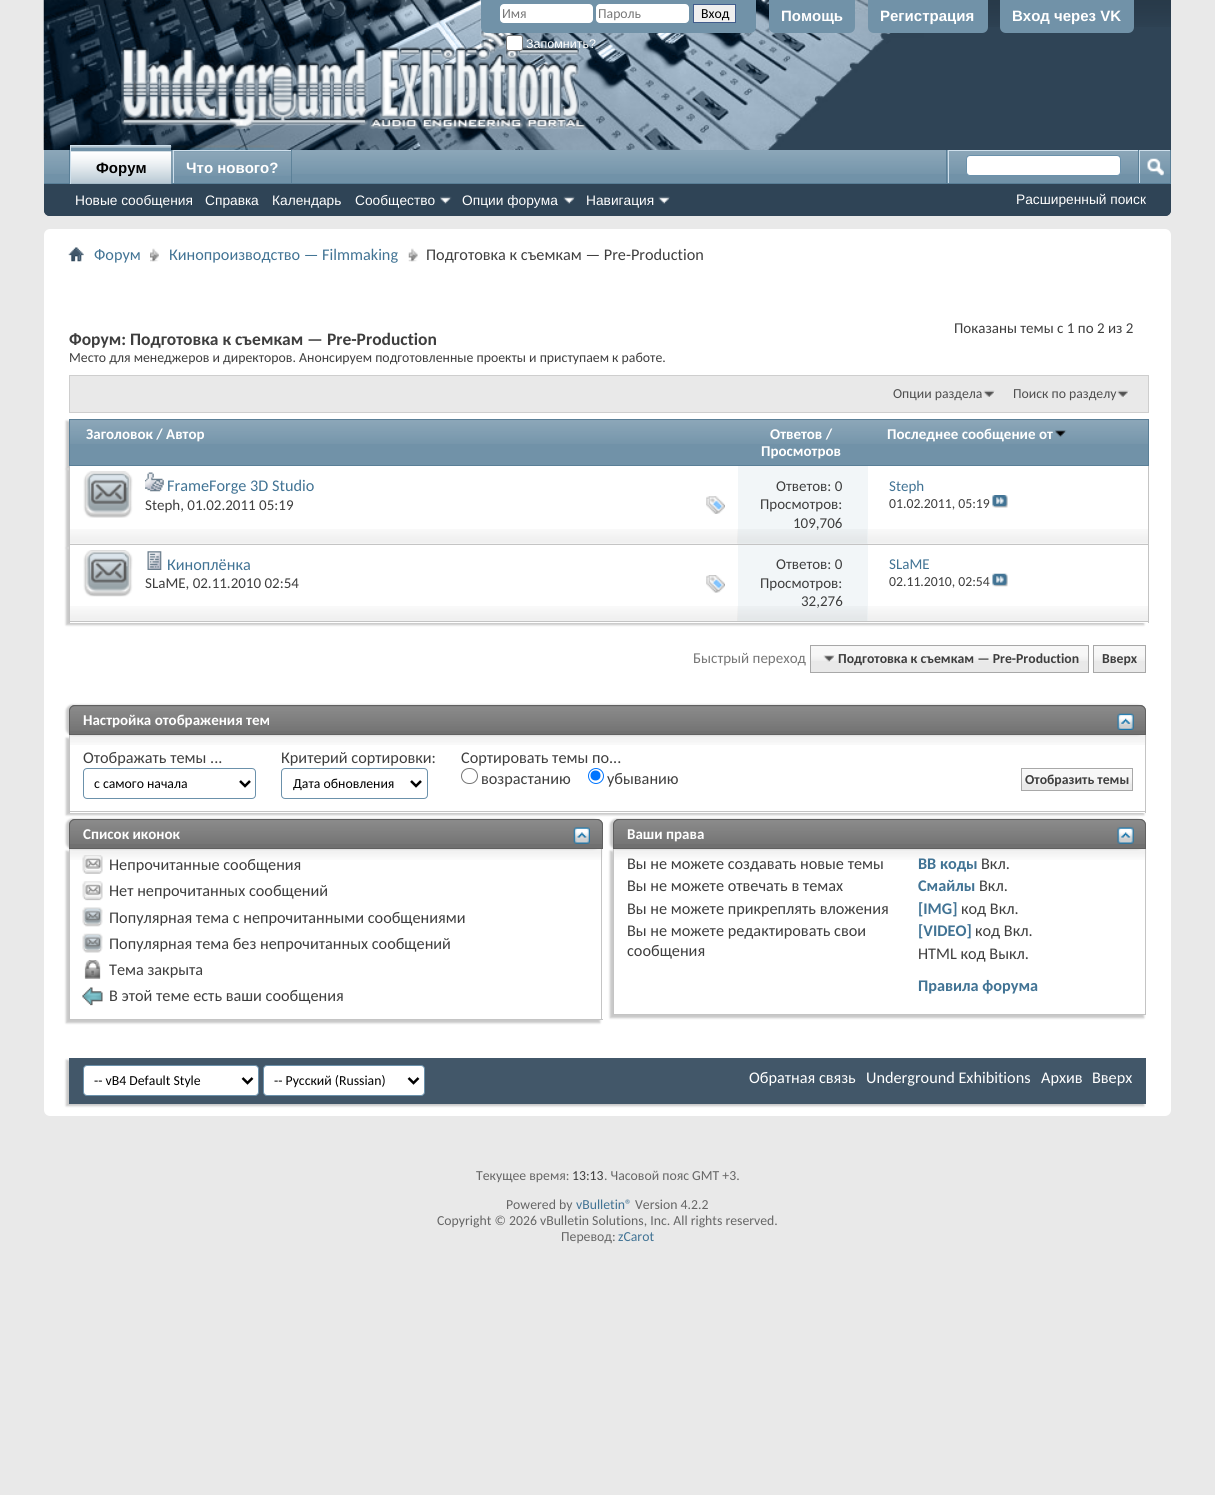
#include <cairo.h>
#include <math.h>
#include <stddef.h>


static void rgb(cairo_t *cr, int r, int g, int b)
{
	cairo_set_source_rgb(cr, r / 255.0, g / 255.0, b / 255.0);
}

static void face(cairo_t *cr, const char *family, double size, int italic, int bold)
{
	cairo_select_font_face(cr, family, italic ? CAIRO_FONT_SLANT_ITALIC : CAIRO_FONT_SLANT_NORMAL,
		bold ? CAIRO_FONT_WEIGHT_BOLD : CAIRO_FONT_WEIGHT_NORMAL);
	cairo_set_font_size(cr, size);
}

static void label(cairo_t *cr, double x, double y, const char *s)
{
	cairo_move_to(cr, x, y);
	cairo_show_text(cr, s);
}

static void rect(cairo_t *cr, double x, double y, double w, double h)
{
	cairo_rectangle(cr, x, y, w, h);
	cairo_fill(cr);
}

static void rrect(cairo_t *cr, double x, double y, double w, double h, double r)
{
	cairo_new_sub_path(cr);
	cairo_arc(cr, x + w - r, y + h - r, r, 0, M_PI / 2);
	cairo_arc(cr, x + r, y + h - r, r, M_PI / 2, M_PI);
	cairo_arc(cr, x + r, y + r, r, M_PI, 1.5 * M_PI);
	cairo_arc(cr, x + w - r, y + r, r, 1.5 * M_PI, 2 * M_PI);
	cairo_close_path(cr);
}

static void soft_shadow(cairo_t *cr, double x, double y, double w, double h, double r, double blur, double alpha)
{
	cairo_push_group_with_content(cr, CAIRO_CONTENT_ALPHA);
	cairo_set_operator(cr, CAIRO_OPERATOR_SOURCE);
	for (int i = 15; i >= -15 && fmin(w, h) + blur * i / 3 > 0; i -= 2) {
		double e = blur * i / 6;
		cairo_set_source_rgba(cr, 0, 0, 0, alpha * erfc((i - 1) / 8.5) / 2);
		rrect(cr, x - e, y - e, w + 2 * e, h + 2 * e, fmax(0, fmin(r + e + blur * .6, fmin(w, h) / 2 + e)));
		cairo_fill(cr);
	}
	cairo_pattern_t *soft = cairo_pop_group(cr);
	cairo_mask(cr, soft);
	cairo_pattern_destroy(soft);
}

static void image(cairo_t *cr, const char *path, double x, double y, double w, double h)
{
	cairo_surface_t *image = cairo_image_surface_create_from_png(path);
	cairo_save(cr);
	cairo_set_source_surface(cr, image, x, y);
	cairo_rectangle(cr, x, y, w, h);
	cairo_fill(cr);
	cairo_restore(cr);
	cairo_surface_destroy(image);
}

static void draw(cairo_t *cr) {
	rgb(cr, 233, 233, 233);
	cairo_paint(cr);
	rgb(cr, 47, 68, 86);
	cairo_new_path(cr);
	cairo_move_to(cr, 44, 0);
	cairo_line_to(cr, 1171, 0);
	cairo_line_to(cr, 1171, 210);
	cairo_curve_to(cr, 1171, 213.5, 1168.5, 216, 1165, 216);
	cairo_line_to(cr, 50, 216);
	cairo_curve_to(cr, 46.5, 216, 44, 213.5, 44, 210);
	cairo_close_path(cr);
	cairo_fill(cr);
	image(cr, "image0.png", 988, 0, 183, 27);
	image(cr, "image1.png", 43, 0, 881, 150);
	rgb(cr, 113, 146, 168);
	cairo_new_path(cr);
	cairo_move_to(cr, 481, 0);
	cairo_line_to(cr, 756, 0);
	cairo_line_to(cr, 756, 27);
	cairo_curve_to(cr, 756, 30.5, 753.5, 33, 750, 33);
	cairo_line_to(cr, 487, 33);
	cairo_curve_to(cr, 483.5, 33, 481, 30.5, 481, 27);
	cairo_close_path(cr);
	cairo_fill(cr);
	rgb(cr, 255, 255, 255);
	rrect(cr, 500, 4, 93, 19, 4);
	cairo_fill(cr);
	face(cr, "Carlito", 13.75, 0, 0);
	rgb(cr, 119, 119, 119);
	label(cr, 502, 18, "Имя");
	rgb(cr, 255, 255, 255);
	rrect(cr, 596, 4, 93, 19, 4);
	cairo_fill(cr);
	rgb(cr, 119, 119, 119);
	label(cr, 598, 18, "Пароль");
	rgb(cr, 239, 239, 239);
	cairo_rectangle(cr, 693.5, 4.5, 42, 18);
	cairo_fill_preserve(cr);
	rgb(cr, 65, 93, 141);
	cairo_set_line_width(cr, 1);
	cairo_stroke(cr);
	rgb(cr, 0, 0, 0);
	label(cr, 701, 18, "Вход");
	rgb(cr, 255, 255, 255);
	rrect(cr, 506.5, 35.5, 16, 15, 2);
	cairo_fill_preserve(cr);
	rgb(cr, 118, 118, 118);
	cairo_stroke(cr);
	face(cr, "Liberation Sans", 12.5, 0, 0);
	rgb(cr, 255, 255, 255);
	label(cr, 526, 48, "Запомнить?");
	rgb(cr, 113, 146, 168);
	cairo_new_path(cr);
	cairo_move_to(cr, 769, 0);
	cairo_line_to(cr, 855, 0);
	cairo_line_to(cr, 855, 27);
	cairo_curve_to(cr, 855, 30.5, 852.5, 33, 849, 33);
	cairo_line_to(cr, 775, 33);
	cairo_curve_to(cr, 771.5, 33, 769, 30.5, 769, 27);
	cairo_close_path(cr);
	cairo_fill(cr);
	face(cr, "Liberation Sans", 15, 0, 1);
	rgb(cr, 255, 255, 255);
	label(cr, 781, 21, "Помощь");
	rgb(cr, 113, 146, 168);
	cairo_new_path(cr);
	cairo_move_to(cr, 868, 0);
	cairo_line_to(cr, 988, 0);
	cairo_line_to(cr, 988, 27);
	cairo_curve_to(cr, 988, 30.5, 985.5, 33, 982, 33);
	cairo_line_to(cr, 874, 33);
	cairo_curve_to(cr, 870.5, 33, 868, 30.5, 868, 27);
	cairo_close_path(cr);
	cairo_fill(cr);
	rgb(cr, 255, 255, 255);
	label(cr, 880, 21, "Регистрация");
	rgb(cr, 113, 146, 168);
	cairo_new_path(cr);
	cairo_move_to(cr, 1000, 0);
	cairo_line_to(cr, 1134, 0);
	cairo_line_to(cr, 1134, 27);
	cairo_curve_to(cr, 1134, 30.5, 1131.5, 33, 1128, 33);
	cairo_line_to(cr, 1006, 33);
	cairo_curve_to(cr, 1002.5, 33, 1000, 30.5, 1000, 27);
	cairo_close_path(cr);
	cairo_fill(cr);
	rgb(cr, 255, 255, 255);
	label(cr, 1012, 21, "Вход через VK");
	rgb(cr, 47, 68, 86);
	cairo_new_path(cr);
	cairo_move_to(cr, 44, 150);
	cairo_line_to(cr, 1171, 150);
	cairo_line_to(cr, 1171, 210);
	cairo_curve_to(cr, 1171, 213.5, 1168.5, 216, 1165, 216);
	cairo_line_to(cr, 50, 216);
	cairo_curve_to(cr, 46.5, 216, 44, 213.5, 44, 210);
	cairo_close_path(cr);
	cairo_fill(cr);
	rgb(cr, 113, 146, 168);
	rect(cr, 44, 150, 1126, 33);
	image(cr, "image2.png", 44, 150, 1126, 24);
	rgb(cr, 90, 127, 151);
	rect(cr, 171, 150, 1, 33);
	rect(cr, 69, 150, 1, 33);
	rect(cr, 291, 150, 1, 34);
	rgb(cr, 113, 146, 168);
	rect(cr, 174, 151, 117, 23);
	image(cr, "image4.png", 172, 151, 120, 25);
	rgb(cr, 206, 223, 235);
	rect(cr, 173, 150, 118, 1);
	rect(cr, 173, 150, 1, 34);
	rgb(cr, 90, 127, 151);
	rect(cr, 44, 183, 1127, 1);
	rgb(cr, 113, 146, 168);
	rect(cr, 71, 146, 100, 38);
	image(cr, "image3.png", 71, 146, 101, 38);
	rgb(cr, 206, 223, 235);
	rect(cr, 70, 145, 101, 1);
	rect(cr, 70, 145, 1, 39);
	rgb(cr, 0, 0, 0);
	label(cr, 96, 173, "Форум");
	rgb(cr, 255, 255, 255);
	label(cr, 186, 173, "Что нового?");
	face(cr, "Liberation Sans", 13.75, 0, 0);
	label(cr, 75, 205, "Новые сообщения");
	label(cr, 205, 205, "Справка");
	label(cr, 272, 205, "Календарь");
	label(cr, 355, 205, "Сообщество");
	image(cr, "image5.png", 440, 196, 12, 8);
	label(cr, 462, 205, "Опции форума");
	image(cr, "image6.png", 563, 196, 12, 8);
	label(cr, 586, 205, "Навигация");
	image(cr, "image7.png", 658, 196, 12, 8);
	rgb(cr, 90, 127, 151);
	rect(cr, 946, 150, 1, 33);
	rgb(cr, 206, 223, 235);
	rect(cr, 948, 150, 190, 1);
	rect(cr, 948, 150, 1, 33);
	rgb(cr, 255, 255, 255);
	rrect(cr, 966.5, 155.5, 154, 20, 3.5);
	cairo_fill_preserve(cr);
	rgb(cr, 107, 145, 171);
	cairo_stroke(cr);
	rgb(cr, 90, 127, 151);
	rect(cr, 1170, 150, 1, 33);
	rect(cr, 1138, 150, 1, 33);
	rgb(cr, 206, 223, 235);
	rect(cr, 1139, 150, 31, 1);
	rect(cr, 1139, 150, 1, 33);
	image(cr, "image8.png", 1147, 158, 17, 18);
	rgb(cr, 255, 255, 255);
	label(cr, 1016, 204, "Расширенный поиск");
	rrect(cr, 44, 229, 1127, 887, 6);
	cairo_fill(cr);
	image(cr, "image9.png", 68, 247, 16, 15);
	image(cr, "image10.png", 150, 248, 9, 14);
	face(cr, "Carlito", 16.25, 0, 0);
	rgb(cr, 65, 115, 148);
	label(cr, 94, 260, "Форум");
	image(cr, "image11.png", 408, 248, 10, 14);
	label(cr, 169, 260, "Кинопроизводство — Filmmaking");
	rgb(cr, 62, 62, 62);
	label(cr, 426, 260, "Подготовка к съемкам — Pre-Production");
	face(cr, "Carlito", 15, 0, 0);
	label(cr, 954, 333, "Показаны темы с 1 по 2 из 2");
	face(cr, "Carlito", 17.5, 0, 1);
	label(cr, 69, 345, "Форум: Подготовка к съемкам — Pre-Production");
	face(cr, "Carlito", 13.8, 0, 0);
	label(cr, 69, 362, "Место для менеджеров и директоров. Анонсируем подготовленные проекты и приступаем к работе.");
	rgb(cr, 233, 233, 233);
	cairo_rectangle(cr, 69.5, 375.5, 1079, 37);
	cairo_fill_preserve(cr);
	rgb(cr, 206, 206, 206);
	cairo_stroke(cr);
	image(cr, "image12.png", 983, 390, 12, 7);
	face(cr, "Carlito", 13.75, 0, 0);
	rgb(cr, 78, 78, 78);
	label(cr, 893, 398, "Опции раздела");
	image(cr, "image13.png", 1117, 390, 12, 7);
	label(cr, 1013, 398, "Поиск по разделу");
	rgb(cr, 200, 200, 200);
	soft_shadow(cr, 66, 421, 1080, 48, 0, 1, 1);
	rgb(cr, 113, 146, 168);
	rect(cr, 70, 420, 1078, 45);
	image(cr, "image14.png", 70, 420, 1078, 24);
	cairo_rectangle(cr, 69.5, 419.5, 1079, 46);
	rgb(cr, 90, 127, 151);
	cairo_stroke(cr);
	face(cr, "Carlito", 15, 0, 1);
	rgb(cr, 255, 255, 255);
	label(cr, 86, 439, "Заголовок / Автор");
	label(cr, 770, 439, "Ответов /");
	label(cr, 761, 456, "Просмотров");
	label(cr, 887, 439, "Последнее сообщение от");
	image(cr, "image15.png", 1055, 430, 12, 7);
	rgb(cr, 200, 200, 200);
	soft_shadow(cr, 66, 469, 1078, 79, 0, 1, 1);
	rgb(cr, 255, 255, 255);
	rect(cr, 70, 466, 1078, 78);
	image(cr, "image16.png", 70, 529, 1078, 15);
	rgb(cr, 196, 196, 196);
	rect(cr, 1148, 466, 1, 157);
	rect(cr, 69, 544, 1080, 1);
	rect(cr, 69, 466, 1, 79);
	image(cr, "image17.png", 83, 471, 50, 47);
	image(cr, "image18.png", 145, 472, 19, 20);
	face(cr, "Carlito", 16.25, 0, 0);
	rgb(cr, 65, 115, 148);
	label(cr, 167, 491, "FrameForge 3D Studio");
	face(cr, "Carlito", 15, 0, 0);
	rgb(cr, 62, 62, 62);
	label(cr, 145, 510, "Steph, 01.02.2011 05:19");
	image(cr, "image19.png", 706, 496, 19, 18);
	rgb(cr, 242, 246, 248);
	rect(cr, 738, 466, 130, 78);
	image(cr, "image20.png", 737, 529, 131, 15);
	rgb(cr, 62, 62, 62);
	label(cr, 776, 491, "Ответов: 0");
	label(cr, 760, 509, "Просмотров:");
	label(cr, 793, 528, "109,706");
	rgb(cr, 65, 115, 148);
	label(cr, 889, 491, "Steph");
	face(cr, "Carlito", 13.75, 0, 0);
	rgb(cr, 62, 62, 62);
	label(cr, 889, 508, "01.02.2011, 05:19");
	image(cr, "image21.png", 992, 495, 16, 13);
	rgb(cr, 200, 200, 200);
	soft_shadow(cr, 66, 548, 1078, 77, 0, 1, 1);
	rgb(cr, 255, 255, 255);
	rect(cr, 70, 545, 1076, 78);
	image(cr, "image22.png", 70, 606, 1078, 15);
	rgb(cr, 196, 196, 196);
	rect(cr, 69, 621, 1080, 1);
	rect(cr, 69, 545, 1, 78);
	image(cr, "image23.png", 83, 550, 50, 47);
	image(cr, "image24.png", 147, 551, 15, 19);
	face(cr, "Carlito", 16.25, 0, 0);
	rgb(cr, 65, 115, 148);
	label(cr, 167, 570, "Киноплёнка");
	face(cr, "Carlito", 15, 0, 0);
	rgb(cr, 62, 62, 62);
	label(cr, 145, 588, "SLaME, 02.11.2010 02:54");
	image(cr, "image25.png", 706, 575, 19, 18);
	rgb(cr, 242, 246, 248);
	rect(cr, 738, 545, 130, 76);
	image(cr, "image26.png", 737, 606, 131, 15);
	rgb(cr, 62, 62, 62);
	label(cr, 776, 569, "Ответов: 0");
	label(cr, 760, 588, "Просмотров:");
	label(cr, 801, 606, "32,276");
	rgb(cr, 65, 115, 148);
	label(cr, 889, 569, "SLaME");
	face(cr, "Carlito", 13.75, 0, 0);
	rgb(cr, 62, 62, 62);
	label(cr, 889, 586, "02.11.2010, 02:54");
	image(cr, "image27.png", 992, 573, 16, 14);
	face(cr, "Carlito", 15, 0, 0);
	rgb(cr, 119, 119, 119);
	label(cr, 693, 663, "Быстрый переход");
	rgb(cr, 233, 233, 233);
	rect(cr, 811, 646, 277, 26);
	image(cr, "image28.png", 811, 646, 277, 15);
	rect(cr, 1094, 646, 51, 26);
	image(cr, "image29.png", 1094, 646, 51, 15);
	cairo_rectangle(cr, 810.5, 645.5, 278, 27);
	rgb(cr, 168, 168, 168);
	cairo_stroke(cr);
	image(cr, "image30.png", 823, 655, 12, 8);
	face(cr, "Carlito", 13.75, 0, 1);
	rgb(cr, 62, 62, 62);
	label(cr, 838, 663, "Подготовка к съемкам — Pre-Production");
	cairo_rectangle(cr, 1093.5, 645.5, 52, 27);
	rgb(cr, 168, 168, 168);
	cairo_stroke(cr);
	rgb(cr, 62, 62, 62);
	label(cr, 1102, 663, "Вверх");
	rgb(cr, 200, 200, 200);
	soft_shadow(cr, 66, 738, 1078, 77, 0, 1, 1);
	rgb(cr, 255, 255, 255);
	rect(cr, 70, 736, 1075, 77);
	image(cr, "image33.png", 70, 735, 1077, 10);
	rgb(cr, 196, 196, 196);
	rect(cr, 1145, 735, 1, 78);
	rect(cr, 69, 811, 1077, 1);
	rect(cr, 69, 735, 1, 78);
	rgb(cr, 200, 200, 200);
	soft_shadow(cr, 66, 705, 1078, 30, 6, 1, 1);
	rgb(cr, 112, 112, 112);
	cairo_new_path(cr);
	cairo_move_to(cr, 75, 705);
	cairo_line_to(cr, 1140, 705);
	cairo_curve_to(cr, 1143.5, 705, 1146, 707.5, 1146, 711);
	cairo_line_to(cr, 1146, 735);
	cairo_line_to(cr, 69, 735);
	cairo_line_to(cr, 69, 711);
	cairo_curve_to(cr, 69, 707.5, 71.5, 705, 75, 705);
	cairo_close_path(cr);
	cairo_fill(cr);
	image(cr, "image31.png", 69, 706, 1077, 25);
	cairo_new_path(cr);
	cairo_move_to(cr, 75, 705.5);
	cairo_line_to(cr, 1140, 705.5);
	cairo_curve_to(cr, 1143, 705.5, 1145.5, 708, 1145.5, 711);
	cairo_line_to(cr, 1145.5, 734.5);
	cairo_line_to(cr, 69.5, 734.5);
	cairo_line_to(cr, 69.5, 711);
	cairo_curve_to(cr, 69.5, 708, 72, 705.5, 75, 705.5);
	cairo_close_path(cr);
	rgb(cr, 96, 96, 96);
	cairo_stroke(cr);
	face(cr, "Carlito", 15, 0, 1);
	rgb(cr, 255, 255, 255);
	label(cr, 83, 725, "Настройка отображения тем");
	image(cr, "image32.png", 1117, 713, 17, 17);
	face(cr, "Carlito", 16.25, 0, 0);
	rgb(cr, 62, 62, 62);
	label(cr, 83, 763, "Отображать темы ...");
	rrect(cr, 83.5, 768.5, 172, 30, 3.5);
	rgb(cr, 107, 145, 171);
	cairo_stroke(cr);
	cairo_new_path(cr);
	cairo_move_to(cr, 240, 781);
	cairo_line_to(cr, 245, 786);
	cairo_line_to(cr, 250, 781);
	rgb(cr, 0, 0, 0);
	cairo_set_line_width(cr, 2.5);
	cairo_stroke(cr);
	face(cr, "Carlito", 13.75, 0, 0);
	label(cr, 94, 788, "с самого начала");
	face(cr, "Carlito", 16.25, 0, 0);
	rgb(cr, 62, 62, 62);
	label(cr, 281, 763, "Критерий сортировки:");
	rrect(cr, 281.5, 768.5, 146, 30, 3.5);
	rgb(cr, 107, 145, 171);
	cairo_set_line_width(cr, 1);
	cairo_stroke(cr);
	cairo_new_path(cr);
	cairo_move_to(cr, 411, 781);
	cairo_line_to(cr, 416, 786);
	cairo_line_to(cr, 421, 781);
	rgb(cr, 0, 0, 0);
	cairo_set_line_width(cr, 2.5);
	cairo_stroke(cr);
	cairo_save(cr);
	cairo_rectangle(cr, 293, 774, 108, 19);
	cairo_clip(cr);
	face(cr, "Carlito", 13.75, 0, 0);
	label(cr, 293, 788, "Дата обновления");
	cairo_restore(cr);
	rgb(cr, 62, 62, 62);
	label(cr, 461, 763, "Сортировать темы по...");
	rrect(cr, 461.5, 768.5, 16, 15, 7.5);
	rgb(cr, 118, 118, 118);
	cairo_set_line_width(cr, 1);
	cairo_stroke(cr);
	rgb(cr, 62, 62, 62);
	label(cr, 481, 784, "возрастанию");
	cairo_new_path(cr);
	cairo_arc(cr, 596, 776, 7.5, 0, 2 * M_PI);
	rgb(cr, 0, 117, 255);
	cairo_stroke(cr);
	cairo_arc(cr, 595.5, 775.5, 5, 0, 2 * M_PI);
	cairo_fill(cr);
	rgb(cr, 62, 62, 62);
	label(cr, 607, 784, "убыванию");
	rgb(cr, 233, 233, 233);
	rect(cr, 1022, 769, 110, 21);
	image(cr, "image34.png", 1022, 769, 110, 15);
	cairo_rectangle(cr, 1021.5, 768.5, 111, 22);
	rgb(cr, 168, 168, 168);
	cairo_stroke(cr);
	face(cr, "Carlito", 13.75, 0, 1);
	rgb(cr, 62, 62, 62);
	label(cr, 1025, 784, "Отобразить темы");
	cairo_save(cr);
	cairo_set_fill_rule(cr, CAIRO_FILL_RULE_EVEN_ODD);
	cairo_new_path(cr);
	cairo_move_to(cr, 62, 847);
	cairo_line_to(cr, 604, 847);
	cairo_line_to(cr, 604, 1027);
	cairo_line_to(cr, 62, 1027);
	cairo_close_path(cr);
	cairo_move_to(cr, 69, 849);
	cairo_line_to(cr, 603, 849);
	cairo_line_to(cr, 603, 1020);
	cairo_line_to(cr, 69, 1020);
	cairo_close_path(cr);
	cairo_clip(cr);
	rgb(cr, 200, 200, 200);
	soft_shadow(cr, 66, 851, 534, 172, 0, 1, 1);
	cairo_restore(cr);
	image(cr, "image37.png", 70, 849, 533, 11);
	rgb(cr, 196, 196, 196);
	rect(cr, 601, 849, 1, 171);
	rect(cr, 69, 1019, 534, 1);
	rect(cr, 69, 849, 1, 171);
	rgb(cr, 200, 200, 200);
	soft_shadow(cr, 66, 819, 534, 30, 6, 1, 1);
	rgb(cr, 112, 112, 112);
	cairo_new_path(cr);
	cairo_move_to(cr, 75, 819);
	cairo_line_to(cr, 597, 819);
	cairo_curve_to(cr, 600.5, 819, 603, 821.5, 603, 825);
	cairo_line_to(cr, 603, 849);
	cairo_line_to(cr, 69, 849);
	cairo_line_to(cr, 69, 825);
	cairo_curve_to(cr, 69, 821.5, 71.5, 819, 75, 819);
	cairo_close_path(cr);
	cairo_fill(cr);
	image(cr, "image35.png", 69, 820, 534, 24);
	cairo_new_path(cr);
	cairo_move_to(cr, 75, 819.5);
	cairo_line_to(cr, 597, 819.5);
	cairo_curve_to(cr, 600, 819.5, 602.5, 822, 602.5, 825);
	cairo_line_to(cr, 602.5, 848.5);
	cairo_line_to(cr, 69.5, 848.5);
	cairo_line_to(cr, 69.5, 825);
	cairo_curve_to(cr, 69.5, 822, 72, 819.5, 75, 819.5);
	cairo_close_path(cr);
	rgb(cr, 96, 96, 96);
	cairo_stroke(cr);
	face(cr, "Carlito", 15, 0, 1);
	rgb(cr, 255, 255, 255);
	label(cr, 83, 839, "Список иконок");
	image(cr, "image36.png", 573, 827, 17, 17);
	image(cr, "image38.png", 82, 855, 21, 19);
	face(cr, "Carlito", 16.25, 0, 0);
	rgb(cr, 62, 62, 62);
	label(cr, 109, 870, "Непрочитанные сообщения");
	image(cr, "image39.png", 82, 881, 21, 20);
	label(cr, 109, 896, "Нет непрочитанных сообщений");
	image(cr, "image40.png", 82, 907, 21, 20);
	label(cr, 109, 923, "Популярная тема с непрочитанными сообщениями");
	image(cr, "image41.png", 82, 933, 21, 20);
	label(cr, 109, 949, "Популярная тема без непрочитанных сообщений");
	image(cr, "image42.png", 84, 960, 17, 19);
	label(cr, 109, 975, "Тема закрыта");
	image(cr, "image43.png", 82, 987, 21, 19);
	label(cr, 109, 1001, "В этой теме есть ваши сообщения");
	cairo_save(cr);
	cairo_set_fill_rule(cr, CAIRO_FILL_RULE_EVEN_ODD);
	cairo_new_path(cr);
	cairo_move_to(cr, 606, 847);
	cairo_line_to(cr, 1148, 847);
	cairo_line_to(cr, 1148, 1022);
	cairo_line_to(cr, 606, 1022);
	cairo_close_path(cr);
	cairo_move_to(cr, 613, 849);
	cairo_line_to(cr, 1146, 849);
	cairo_line_to(cr, 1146, 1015);
	cairo_line_to(cr, 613, 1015);
	cairo_close_path(cr);
	cairo_clip(cr);
	rgb(cr, 200, 200, 200);
	soft_shadow(cr, 610, 851, 534, 167, 0, 1, 1);
	cairo_restore(cr);
	image(cr, "image46.png", 612, 848, 535, 12);
	rgb(cr, 196, 196, 196);
	rect(cr, 1145, 849, 1, 166);
	rect(cr, 613, 1014, 533, 1);
	rect(cr, 613, 849, 1, 166);
	rgb(cr, 200, 200, 200);
	soft_shadow(cr, 610, 819, 534, 30, 6, 1, 1);
	rgb(cr, 112, 112, 112);
	cairo_new_path(cr);
	cairo_move_to(cr, 619, 819);
	cairo_line_to(cr, 1140, 819);
	cairo_curve_to(cr, 1143.5, 819, 1146, 821.5, 1146, 825);
	cairo_line_to(cr, 1146, 849);
	cairo_line_to(cr, 613, 849);
	cairo_line_to(cr, 613, 825);
	cairo_curve_to(cr, 613, 821.5, 615.5, 819, 619, 819);
	cairo_close_path(cr);
	cairo_fill(cr);
	image(cr, "image44.png", 613, 820, 533, 24);
	cairo_new_path(cr);
	cairo_move_to(cr, 619, 819.5);
	cairo_line_to(cr, 1140, 819.5);
	cairo_curve_to(cr, 1143, 819.5, 1145.5, 822, 1145.5, 825);
	cairo_line_to(cr, 1145.5, 848.5);
	cairo_line_to(cr, 613.5, 848.5);
	cairo_line_to(cr, 613.5, 825);
	cairo_curve_to(cr, 613.5, 822, 616, 819.5, 619, 819.5);
	cairo_close_path(cr);
	rgb(cr, 96, 96, 96);
	cairo_stroke(cr);
	face(cr, "Carlito", 15, 0, 1);
	rgb(cr, 255, 255, 255);
	label(cr, 627, 839, "Ваши права");
	image(cr, "image45.png", 1117, 827, 17, 17);
	face(cr, "Carlito", 16.25, 0, 0);
	rgb(cr, 62, 62, 62);
	label(cr, 627, 869, "Вы не можете создавать новые темы");
	label(cr, 627, 891, "Вы не можете отвечать в темах");
	label(cr, 627, 914, "Вы не можете прикреплять вложения");
	label(cr, 627, 936, "Вы не можете редактировать свои");
	label(cr, 627, 956, "сообщения");
	face(cr, "Carlito", 16.25, 0, 1);
	rgb(cr, 65, 115, 148);
	label(cr, 918, 869, "BB коды");
	face(cr, "Carlito", 16.25, 0, 0);
	rgb(cr, 62, 62, 62);
	label(cr, 981, 869, "Вкл.");
	face(cr, "Carlito", 16.25, 0, 1);
	rgb(cr, 65, 115, 148);
	label(cr, 918, 891, "Смайлы");
	face(cr, "Carlito", 16.25, 0, 0);
	rgb(cr, 62, 62, 62);
	label(cr, 979, 891, "Вкл.");
	face(cr, "Carlito", 16.25, 0, 1);
	rgb(cr, 65, 115, 148);
	label(cr, 918, 914, "[IMG]");
	face(cr, "Carlito", 16.25, 0, 0);
	rgb(cr, 62, 62, 62);
	label(cr, 961, 914, "код Вкл.");
	face(cr, "Carlito", 16.25, 0, 1);
	rgb(cr, 65, 115, 148);
	label(cr, 918, 936, "[VIDEO]");
	face(cr, "Carlito", 16.25, 0, 0);
	rgb(cr, 62, 62, 62);
	label(cr, 975, 936, "код Вкл.");
	label(cr, 918, 959, "HTML код Выкл.");
	face(cr, "Carlito", 16.25, 0, 1);
	rgb(cr, 65, 115, 148);
	label(cr, 918, 991, "Правила форума");
	rgb(cr, 200, 200, 200);
	soft_shadow(cr, 66, 1060, 1078, 46, 0, 1, 1);
	rgb(cr, 66, 87, 105);
	rect(cr, 69, 1058, 1077, 46);
	rgb(cr, 255, 255, 255);
	rrect(cr, 83.5, 1065.5, 175, 30, 3.5);
	cairo_fill_preserve(cr);
	rgb(cr, 107, 145, 171);
	cairo_stroke(cr);
	cairo_new_path(cr);
	cairo_move_to(cr, 242.5, 1078);
	cairo_line_to(cr, 247.5, 1083);
	cairo_line_to(cr, 252.5, 1078);
	rgb(cr, 0, 0, 0);
	cairo_set_line_width(cr, 2.5);
	cairo_stroke(cr);
	face(cr, "Carlito", 13.75, 0, 0);
	label(cr, 94, 1085, "-- vB4 Default Style");
	rgb(cr, 255, 255, 255);
	rrect(cr, 263.5, 1065.5, 161, 30, 3.5);
	cairo_fill_preserve(cr);
	rgb(cr, 107, 145, 171);
	cairo_set_line_width(cr, 1);
	cairo_stroke(cr);
	cairo_new_path(cr);
	cairo_move_to(cr, 408.5, 1078);
	cairo_line_to(cr, 413.5, 1083);
	cairo_line_to(cr, 418.5, 1078);
	rgb(cr, 0, 0, 0);
	cairo_set_line_width(cr, 2.5);
	cairo_stroke(cr);
	label(cr, 274, 1085, "-- Русский (Russian)");
	face(cr, "Carlito", 16.25, 0, 0);
	rgb(cr, 255, 255, 255);
	label(cr, 749, 1083, "Обратная связь");
	label(cr, 866, 1083, "Underground Exhibitions");
	label(cr, 1041, 1083, "Архив");
	label(cr, 1092, 1083, "Вверх");
	face(cr, "Carlito", 13.75, 0, 0);
	rgb(cr, 102, 102, 102);
	label(cr, 476, 1180, "Текущее время:");
	rgb(cr, 62, 62, 62);
	label(cr, 572, 1180, "13:13");
	rgb(cr, 102, 102, 102);
	label(cr, 604, 1180, ". Часовой пояс GMT +3.");
	label(cr, 506, 1209, "Powered by");
	rgb(cr, 65, 115, 148);
	label(cr, 576, 1209, "vBulletin®");
	rgb(cr, 102, 102, 102);
	label(cr, 635, 1209, "Version 4.2.2");
	label(cr, 437, 1225, "Copyright © 2026 vBulletin Solutions, Inc. All rights reserved.");
	label(cr, 561, 1241, "Перевод:");
	rgb(cr, 65, 115, 148);
	label(cr, 618, 1241, "zCarot");
}

int main(void) {
	cairo_surface_t *surface = cairo_image_surface_create(CAIRO_FORMAT_RGB24, 1215, 1495);
	cairo_t *cr = cairo_create(surface);
	cairo_font_options_t *options = cairo_font_options_create();
	cairo_font_options_set_hint_metrics(options, CAIRO_HINT_METRICS_OFF);
	cairo_font_options_set_hint_style(options, CAIRO_HINT_STYLE_NONE);
	cairo_set_font_options(cr, options);
	cairo_set_miter_limit(cr, 4);
	draw(cr);
	cairo_surface_write_to_png(surface, "render.png");
	cairo_font_options_destroy(options);
	cairo_destroy(cr);
	cairo_surface_destroy(surface);
	return 0;
}
